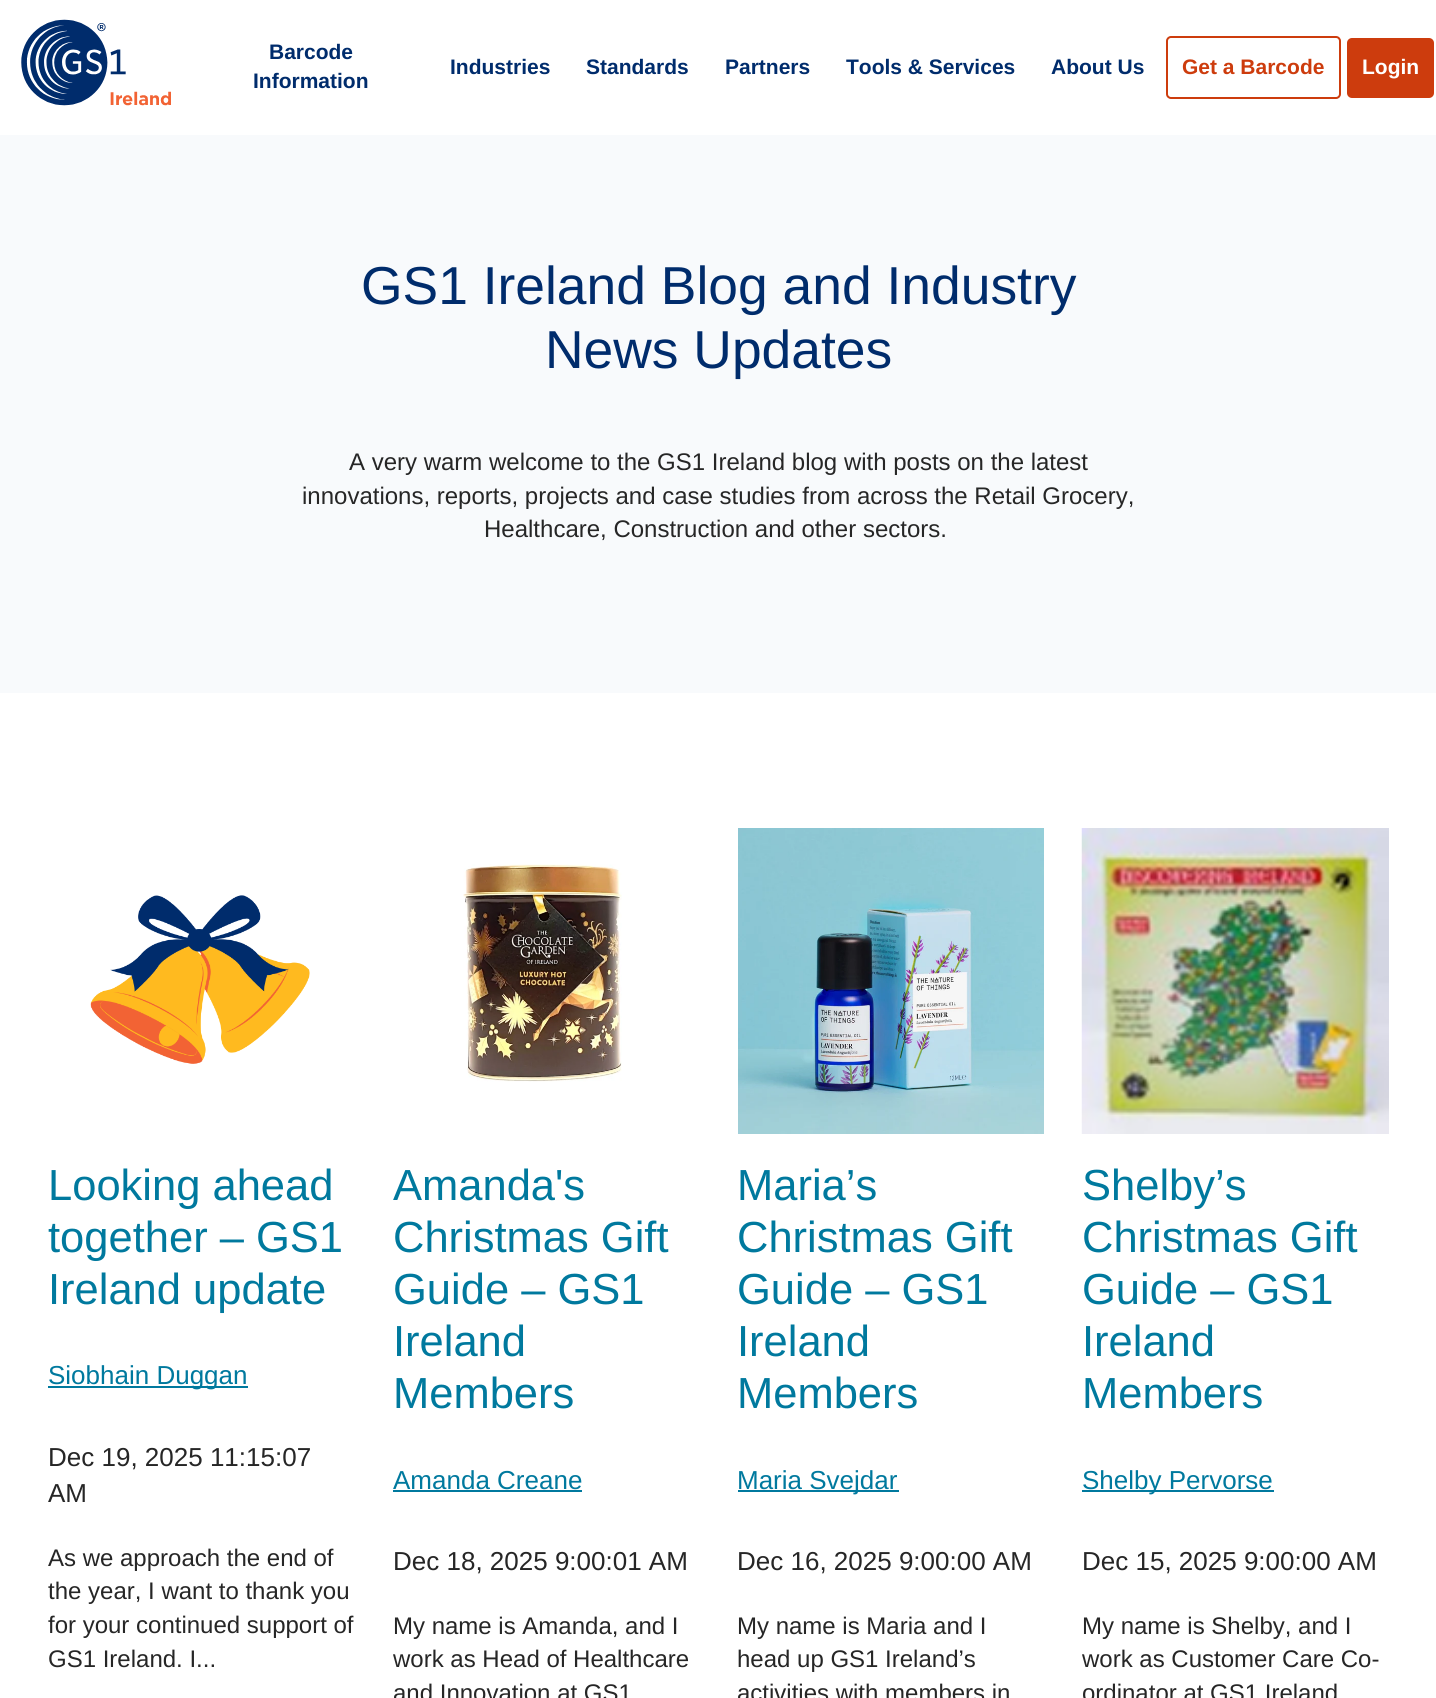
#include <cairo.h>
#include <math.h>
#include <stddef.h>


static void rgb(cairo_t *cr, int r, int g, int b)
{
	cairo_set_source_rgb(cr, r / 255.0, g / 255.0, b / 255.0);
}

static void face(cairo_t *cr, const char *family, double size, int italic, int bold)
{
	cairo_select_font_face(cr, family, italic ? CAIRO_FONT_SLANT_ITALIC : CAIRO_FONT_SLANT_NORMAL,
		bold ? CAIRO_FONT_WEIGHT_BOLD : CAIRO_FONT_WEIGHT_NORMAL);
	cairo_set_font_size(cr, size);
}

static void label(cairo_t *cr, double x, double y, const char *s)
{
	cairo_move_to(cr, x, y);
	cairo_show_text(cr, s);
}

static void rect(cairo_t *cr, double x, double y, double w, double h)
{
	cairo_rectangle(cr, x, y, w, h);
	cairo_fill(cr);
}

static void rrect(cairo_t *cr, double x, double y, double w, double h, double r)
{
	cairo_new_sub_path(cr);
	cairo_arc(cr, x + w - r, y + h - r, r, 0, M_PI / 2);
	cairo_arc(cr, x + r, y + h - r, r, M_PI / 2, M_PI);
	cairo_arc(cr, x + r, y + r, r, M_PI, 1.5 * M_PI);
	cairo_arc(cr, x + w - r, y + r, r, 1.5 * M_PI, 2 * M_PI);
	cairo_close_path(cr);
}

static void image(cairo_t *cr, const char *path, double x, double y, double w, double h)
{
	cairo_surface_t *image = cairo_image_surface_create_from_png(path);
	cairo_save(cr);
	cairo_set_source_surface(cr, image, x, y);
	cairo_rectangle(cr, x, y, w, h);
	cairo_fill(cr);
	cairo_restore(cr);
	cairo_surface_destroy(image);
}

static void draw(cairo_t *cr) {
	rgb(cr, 255, 255, 255);
	cairo_paint(cr);
	image(cr, "image0.png", 21, 19, 150, 87);
	face(cr, "Liberation Sans", 21, 0, 1);
	rgb(cr, 0, 44, 108);
	label(cr, 269, 59, "Barcode");
	label(cr, 253, 88, "Information");
	label(cr, 450, 74, "Industries");
	label(cr, 586, 74, "Standards");
	label(cr, 725, 74, "Partners");
	label(cr, 846, 74, "Tools & Services");
	label(cr, 1051, 74, "About Us");
	rrect(cr, 1167, 37, 173, 61, 4);
	rgb(cr, 205, 60, 13);
	cairo_stroke(cr);
	label(cr, 1182, 74, "Get a Barcode");
	rrect(cr, 1347, 38, 87, 60, 5);
	cairo_fill(cr);
	rgb(cr, 255, 255, 255);
	label(cr, 1362, 74, "Login");
	rgb(cr, 248, 250, 252);
	rect(cr, 0, 135, 1436, 558);
	face(cr, "Liberation Sans", 53.4, 0, 0);
	rgb(cr, 0, 44, 108);
	label(cr, 361, 304, "GS1 Ireland Blog and Industry");
	label(cr, 545, 368, "News Updates");
	face(cr, "Liberation Sans", 24, 0, 0);
	rgb(cr, 38, 38, 38);
	label(cr, 349, 470, "A very warm welcome to the GS1 Ireland blog with posts on the latest");
	label(cr, 302, 504, "innovations, reports, projects and case studies from across the Retail Grocery,");
	label(cr, 484, 537, "Healthcare, Construction and other sectors.");
	image(cr, "image1.png", 90, 895, 220, 169);
	face(cr, "Liberation Sans", 43.5, 0, 0);
	rgb(cr, 0, 121, 158);
	label(cr, 48, 1200, "Looking ahead");
	label(cr, 48, 1252, "together – GS1");
	label(cr, 48, 1304, "Ireland update");
	rect(cr, 48, 1386, 200, 2);
	face(cr, "Liberation Sans", 26, 0, 0);
	label(cr, 48, 1384, "Siobhain Duggan");
	rgb(cr, 38, 38, 38);
	label(cr, 48, 1466, "Dec 19, 2025 11:15:07");
	label(cr, 48, 1502, "AM");
	face(cr, "Liberation Sans", 24, 0, 0);
	label(cr, 48, 1566, "As we approach the end of");
	label(cr, 48, 1599, "the year, I want to thank you");
	label(cr, 48, 1633, "for your continued support of");
	label(cr, 48, 1667, "GS1 Ireland. I...");
	image(cr, "image2.png", 463, 864, 159, 218);
	face(cr, "Liberation Sans", 43.5, 0, 0);
	rgb(cr, 0, 121, 158);
	label(cr, 393, 1200, "Amanda's");
	label(cr, 393, 1252, "Christmas Gift");
	label(cr, 393, 1304, "Guide – GS1");
	label(cr, 393, 1356, "Ireland");
	label(cr, 393, 1408, "Members");
	face(cr, "Liberation Sans", 26, 0, 0);
	label(cr, 393, 1489, "Amanda Creane");
	rect(cr, 393, 1490, 189, 2);
	rgb(cr, 38, 38, 38);
	label(cr, 393, 1570, "Dec 18, 2025 9:00:01 AM");
	face(cr, "Liberation Sans", 24, 0, 0);
	label(cr, 393, 1634, "My name is Amanda, and I");
	label(cr, 393, 1667, "work as Head of Healthcare");
	label(cr, 393, 1701, "and Innovation at GS1");
	image(cr, "image3.png", 738, 828, 306, 306);
	face(cr, "Liberation Sans", 43.5, 0, 0);
	rgb(cr, 0, 121, 158);
	label(cr, 737, 1200, "Maria’s");
	label(cr, 737, 1252, "Christmas Gift");
	label(cr, 737, 1304, "Guide – GS1");
	label(cr, 737, 1356, "Ireland");
	label(cr, 737, 1408, "Members");
	rect(cr, 738, 1490, 161, 2);
	face(cr, "Liberation Sans", 26, 0, 0);
	label(cr, 737, 1489, "Maria Svejdar");
	rgb(cr, 38, 38, 38);
	label(cr, 737, 1570, "Dec 16, 2025 9:00:00 AM");
	face(cr, "Liberation Sans", 24, 0, 0);
	label(cr, 737, 1634, "My name is Maria and I");
	label(cr, 737, 1667, "head up GS1 Ireland’s");
	label(cr, 737, 1701, "activities with members in");
	image(cr, "image4.png", 1081, 828, 308, 306);
	face(cr, "Liberation Sans", 43.5, 0, 0);
	rgb(cr, 0, 121, 158);
	label(cr, 1082, 1200, "Shelby’s");
	label(cr, 1082, 1252, "Christmas Gift");
	label(cr, 1082, 1304, "Guide – GS1");
	label(cr, 1082, 1356, "Ireland");
	label(cr, 1082, 1408, "Members");
	rect(cr, 1082, 1490, 192, 2);
	face(cr, "Liberation Sans", 26, 0, 0);
	label(cr, 1082, 1489, "Shelby Pervorse");
	rgb(cr, 38, 38, 38);
	label(cr, 1082, 1570, "Dec 15, 2025 9:00:00 AM");
	face(cr, "Liberation Sans", 24, 0, 0);
	label(cr, 1082, 1634, "My name is Shelby, and I");
	label(cr, 1082, 1667, "work as Customer Care Co-");
	label(cr, 1082, 1701, "ordinator at GS1 Ireland");
}

int main(void) {
	cairo_surface_t *surface = cairo_image_surface_create(CAIRO_FORMAT_RGB24, 1436, 1698);
	cairo_t *cr = cairo_create(surface);
	cairo_font_options_t *options = cairo_font_options_create();
	cairo_font_options_set_hint_metrics(options, CAIRO_HINT_METRICS_OFF);
	cairo_font_options_set_hint_style(options, CAIRO_HINT_STYLE_NONE);
	cairo_set_font_options(cr, options);
	cairo_set_miter_limit(cr, 4);
	draw(cr);
	cairo_surface_write_to_png(surface, "render.png");
	cairo_font_options_destroy(options);
	cairo_destroy(cr);
	cairo_surface_destroy(surface);
	return 0;
}
